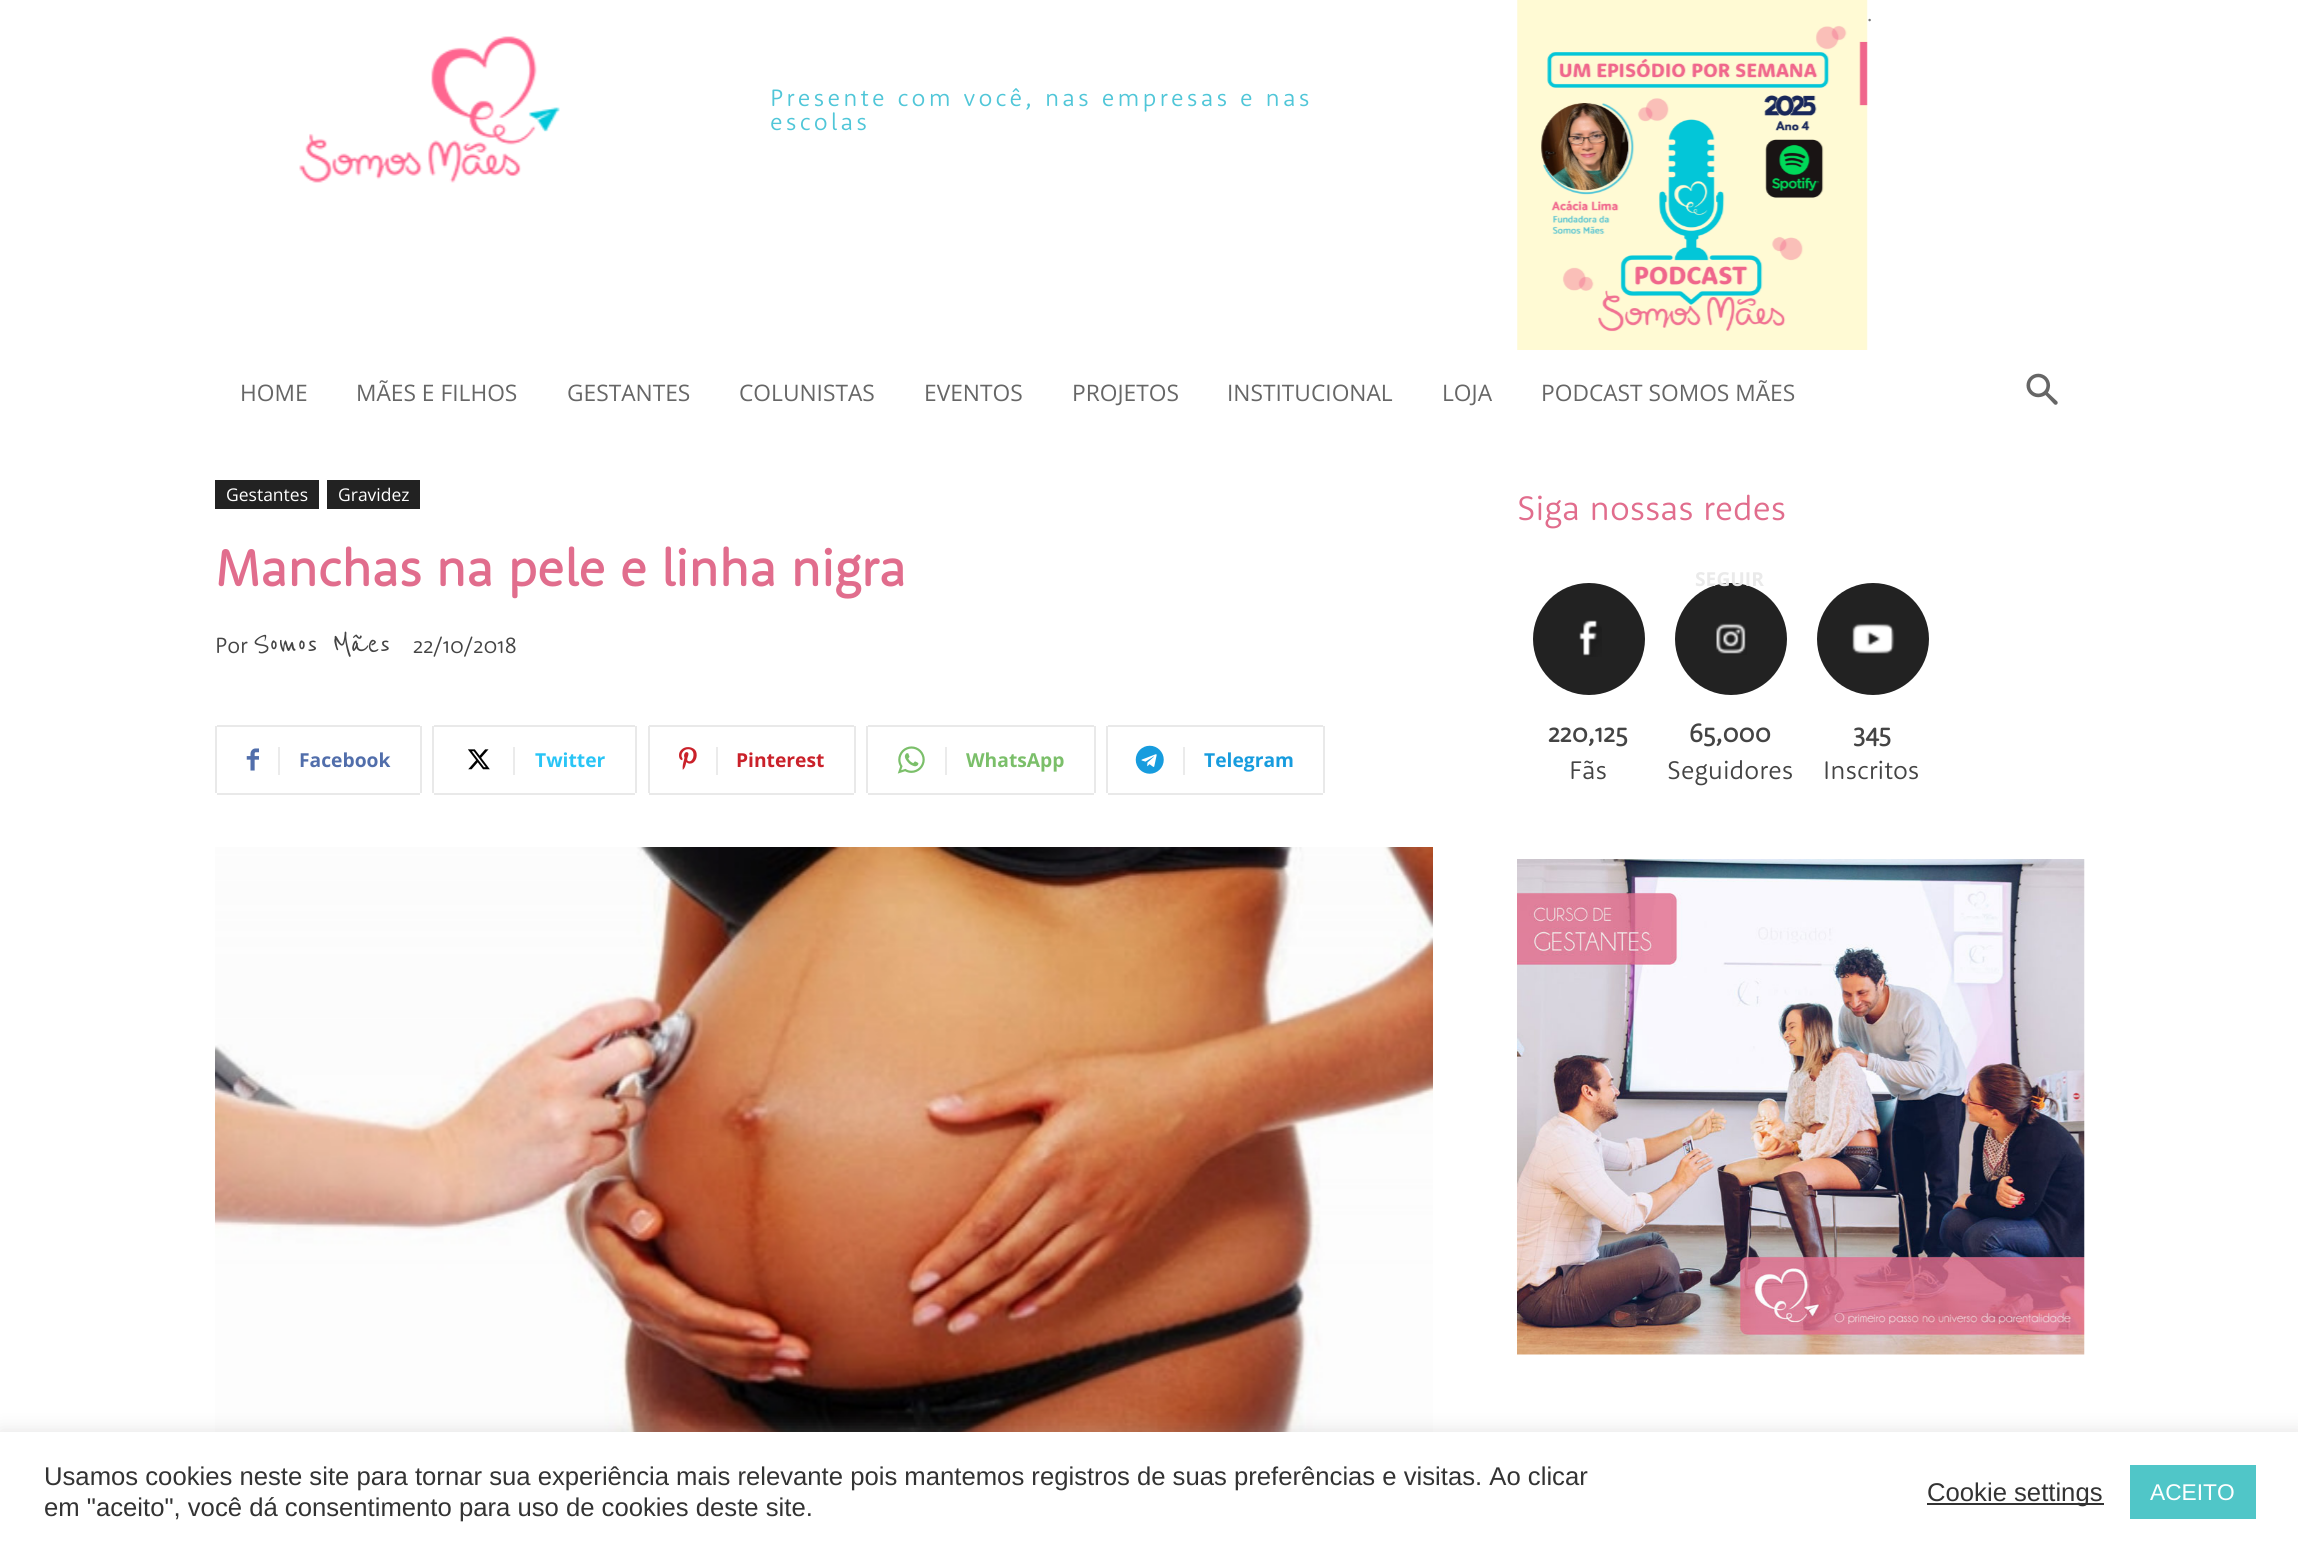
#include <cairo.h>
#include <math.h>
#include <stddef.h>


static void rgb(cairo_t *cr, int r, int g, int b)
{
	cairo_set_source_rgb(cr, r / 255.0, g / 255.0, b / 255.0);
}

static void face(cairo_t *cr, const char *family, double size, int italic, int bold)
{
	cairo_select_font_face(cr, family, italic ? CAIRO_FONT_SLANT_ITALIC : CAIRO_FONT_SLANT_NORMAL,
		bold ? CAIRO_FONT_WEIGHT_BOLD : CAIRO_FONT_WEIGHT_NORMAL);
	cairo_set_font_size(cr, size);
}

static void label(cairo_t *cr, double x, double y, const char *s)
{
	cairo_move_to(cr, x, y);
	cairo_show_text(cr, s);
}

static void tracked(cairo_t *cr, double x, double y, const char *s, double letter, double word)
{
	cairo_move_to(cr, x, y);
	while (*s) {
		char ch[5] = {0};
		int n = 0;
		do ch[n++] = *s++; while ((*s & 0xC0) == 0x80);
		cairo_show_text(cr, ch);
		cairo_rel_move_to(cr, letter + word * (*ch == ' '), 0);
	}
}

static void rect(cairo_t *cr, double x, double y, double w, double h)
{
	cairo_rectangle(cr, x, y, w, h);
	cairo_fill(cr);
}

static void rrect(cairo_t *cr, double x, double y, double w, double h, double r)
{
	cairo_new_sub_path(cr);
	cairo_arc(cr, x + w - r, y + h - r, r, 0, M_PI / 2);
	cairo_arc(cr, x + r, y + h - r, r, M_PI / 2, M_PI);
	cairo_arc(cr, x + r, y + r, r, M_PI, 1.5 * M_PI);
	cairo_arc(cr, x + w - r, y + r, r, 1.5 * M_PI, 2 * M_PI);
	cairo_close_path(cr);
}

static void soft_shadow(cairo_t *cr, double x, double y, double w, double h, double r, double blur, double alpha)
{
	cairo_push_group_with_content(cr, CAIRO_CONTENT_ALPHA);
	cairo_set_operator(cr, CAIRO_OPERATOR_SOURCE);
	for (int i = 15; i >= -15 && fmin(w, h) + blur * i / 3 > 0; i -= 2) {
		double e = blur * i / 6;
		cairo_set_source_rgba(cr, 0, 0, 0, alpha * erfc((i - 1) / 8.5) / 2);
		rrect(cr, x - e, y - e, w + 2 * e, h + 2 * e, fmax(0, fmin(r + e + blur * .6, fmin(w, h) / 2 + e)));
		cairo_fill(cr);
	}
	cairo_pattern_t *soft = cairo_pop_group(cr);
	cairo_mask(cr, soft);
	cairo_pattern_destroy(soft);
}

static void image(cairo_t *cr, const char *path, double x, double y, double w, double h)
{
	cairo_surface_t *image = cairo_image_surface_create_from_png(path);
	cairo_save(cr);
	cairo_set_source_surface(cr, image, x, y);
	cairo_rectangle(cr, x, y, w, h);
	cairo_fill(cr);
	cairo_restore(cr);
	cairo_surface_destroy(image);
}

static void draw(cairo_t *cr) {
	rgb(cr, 255, 255, 255);
	cairo_paint(cr);
	image(cr, "image0.png", 1517, 0, 351, 350);
	face(cr, "Liberation Serif", 21, 0, 0);
	rgb(cr, 118, 118, 118);
	tracked(cr, 1867, 21, ".", 3.15, 0);
	image(cr, "image1.png", 299, 36, 261, 147);
	face(cr, "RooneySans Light", 24.5, 0, 0);
	rgb(cr, 80, 198, 216);
	tracked(cr, 770, 106, "Presente com você, nas empresas e nas", 3.15, 0);
	tracked(cr, 770, 130, "escolas", 3.15, 0);
	face(cr, "Open Sans", 22.75, 0, 0);
	rgb(cr, 102, 102, 102);
	label(cr, 240, 401, "HOME");
	label(cr, 356, 401, "MÃES E FILHOS");
	label(cr, 567, 401, "GESTANTES");
	label(cr, 739, 401, "COLUNISTAS");
	label(cr, 924, 401, "EVENTOS");
	label(cr, 1072, 401, "PROJETOS");
	label(cr, 1227, 401, "INSTITUCIONAL");
	label(cr, 1442, 401, "LOJA");
	label(cr, 1541, 401, "PODCAST SOMOS MÃES");
	image(cr, "image2.png", 2026, 373, 32, 32);
	rgb(cr, 34, 34, 34);
	rect(cr, 215, 480, 104, 29);
	face(cr, "Open Sans", 17.5, 0, 0);
	rgb(cr, 255, 255, 255);
	label(cr, 226, 501, "Gestantes");
	rgb(cr, 34, 34, 34);
	rect(cr, 327, 480, 93, 29);
	rgb(cr, 255, 255, 255);
	label(cr, 338, 501, "Gravidez");
	face(cr, "RooneySans", 52.5, 0, 1);
	rgb(cr, 225, 109, 141);
	label(cr, 215, 586, "Manchas na pele e linha nigra");
	face(cr, "RooneySans Light", 22.75, 0, 0);
	rgb(cr, 68, 68, 68);
	label(cr, 215, 653, "Por");
	face(cr, "Reenie Beanie Medium", 35, 0, 0);
	label(cr, 253, 653, "Somos Mães");
	face(cr, "RooneySans Light", 22.75, 0, 0);
	label(cr, 413, 653, "22/10/2018");
	rgb(cr, 233, 233, 233);
	rect(cr, 215, 726, 2, 67);
	image(cr, "image3.png", 246, 748, 13, 23);
	rect(cr, 217, 725, 203, 2);
	rect(cr, 420, 726, 2, 67);
	rect(cr, 217, 793, 203, 2);
	rgb(cr, 235, 235, 235);
	rect(cr, 278, 747, 2, 28);
	face(cr, "Open Sans", 19.25, 0, 1);
	rgb(cr, 81, 110, 171);
	label(cr, 299, 767, "Facebook");
	rgb(cr, 233, 233, 233);
	rect(cr, 432, 726, 2, 67);
	image(cr, "image4.png", 468, 749, 22, 21);
	rect(cr, 434, 725, 201, 2);
	rect(cr, 635, 726, 2, 67);
	rect(cr, 434, 793, 201, 2);
	rgb(cr, 235, 235, 235);
	rect(cr, 513, 747, 2, 28);
	rgb(cr, 41, 197, 246);
	label(cr, 535, 767, "Twitter");
	rgb(cr, 233, 233, 233);
	rect(cr, 649, 725, 205, 2);
	rect(cr, 648, 726, 2, 67);
	image(cr, "image5.png", 679, 747, 18, 23);
	rect(cr, 854, 726, 2, 67);
	rect(cr, 649, 793, 205, 2);
	rgb(cr, 235, 235, 235);
	rect(cr, 716, 747, 2, 28);
	rgb(cr, 202, 33, 42);
	label(cr, 736, 767, "Pinterest");
	rgb(cr, 233, 233, 233);
	rect(cr, 866, 726, 2, 67);
	image(cr, "image6.png", 897, 746, 28, 28);
	rect(cr, 868, 725, 226, 2);
	rect(cr, 1094, 726, 2, 67);
	rect(cr, 868, 793, 226, 2);
	rgb(cr, 235, 235, 235);
	rect(cr, 945, 747, 2, 28);
	rgb(cr, 123, 191, 106);
	label(cr, 966, 767, "WhatsApp");
	rgb(cr, 233, 233, 233);
	rect(cr, 1106, 726, 2, 67);
	image(cr, "image7.png", 1135, 745, 29, 29);
	rect(cr, 1108, 725, 215, 2);
	rect(cr, 1323, 726, 2, 67);
	rect(cr, 1108, 793, 215, 2);
	rgb(cr, 235, 235, 235);
	rect(cr, 1183, 747, 2, 28);
	rgb(cr, 23, 156, 222);
	label(cr, 1204, 767, "Telegram");
	image(cr, "image8.png", 215, 847, 1218, 585);
	face(cr, "RooneySans Light", 35, 0, 0);
	rgb(cr, 225, 109, 141);
	label(cr, 1517, 520, "Siga nossas redes");
	rgb(cr, 34, 34, 34);
	cairo_new_path(cr);
	cairo_arc(cr, 1589, 639, 56, 0, 2 * M_PI);
	cairo_fill(cr);
	image(cr, "image9.png", 1579, 620, 23, 37);
	face(cr, "RooneySans", 26.25, 0, 1);
	rgb(cr, 68, 68, 68);
	label(cr, 1548, 742, "220,125");
	face(cr, "RooneySans Light", 26.25, 0, 0);
	label(cr, 1569, 779, "Fãs");
	rgb(cr, 34, 34, 34);
	cairo_new_path(cr);
	cairo_arc(cr, 1731, 639, 56, 0, 2 * M_PI);
	cairo_fill(cr);
	face(cr, "Open Sans", 19.25, 0, 1);
	rgb(cr, 234, 234, 234);
	label(cr, 1695, 586, "SEGUIR");
	image(cr, "image10.png", 1716, 623, 31, 32);
	face(cr, "RooneySans", 26.25, 0, 1);
	rgb(cr, 68, 68, 68);
	label(cr, 1689, 742, "65,000");
	face(cr, "RooneySans Light", 26.25, 0, 0);
	label(cr, 1667, 779, "Seguidores");
	rgb(cr, 34, 34, 34);
	cairo_new_path(cr);
	cairo_arc(cr, 1873, 639, 56, 0, 2 * M_PI);
	cairo_fill(cr);
	image(cr, "image11.png", 1852, 623, 43, 32);
	face(cr, "RooneySans", 26.25, 0, 1);
	rgb(cr, 68, 68, 68);
	label(cr, 1853, 742, "345");
	face(cr, "RooneySans Light", 26.25, 0, 0);
	label(cr, 1823, 779, "Inscritos");
	image(cr, "image12.png", 1517, 859, 568, 496);
	rgb(cr, 172, 171, 171);
	soft_shadow(cr, 0, 1430, 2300, 121, 0, 9, 0.3);
	rgb(cr, 255, 255, 255);
	rect(cr, 0, 1432, 2298, 119);
	face(cr, "Liberation Sans", 25.67, 0, 0);
	rgb(cr, 51, 51, 51);
	label(cr, 44, 1485, "Usamos cookies neste site para tornar sua experiência mais relevante pois mantemos registros de suas preferências e visitas. Ao clicar");
	label(cr, 44, 1516, "em \"aceito\", você dá consentimento para uso de cookies deste site.");
	rect(cr, 1927, 1503, 177, 2);
	label(cr, 1927, 1501, "Cookie settings");
	rgb(cr, 80, 198, 200);
	rect(cr, 2130, 1465, 126, 54);
	face(cr, "Liberation Sans", 22.75, 0, 0);
	rgb(cr, 255, 255, 255);
	label(cr, 2150, 1500, "ACEITO");
}

int main(void) {
	cairo_surface_t *surface = cairo_image_surface_create(CAIRO_FORMAT_RGB24, 2298, 1551);
	cairo_t *cr = cairo_create(surface);
	cairo_font_options_t *options = cairo_font_options_create();
	cairo_font_options_set_hint_metrics(options, CAIRO_HINT_METRICS_OFF);
	cairo_font_options_set_hint_style(options, CAIRO_HINT_STYLE_NONE);
	cairo_set_font_options(cr, options);
	cairo_set_miter_limit(cr, 4);
	draw(cr);
	cairo_surface_write_to_png(surface, "render.png");
	cairo_font_options_destroy(options);
	cairo_destroy(cr);
	cairo_surface_destroy(surface);
	return 0;
}
